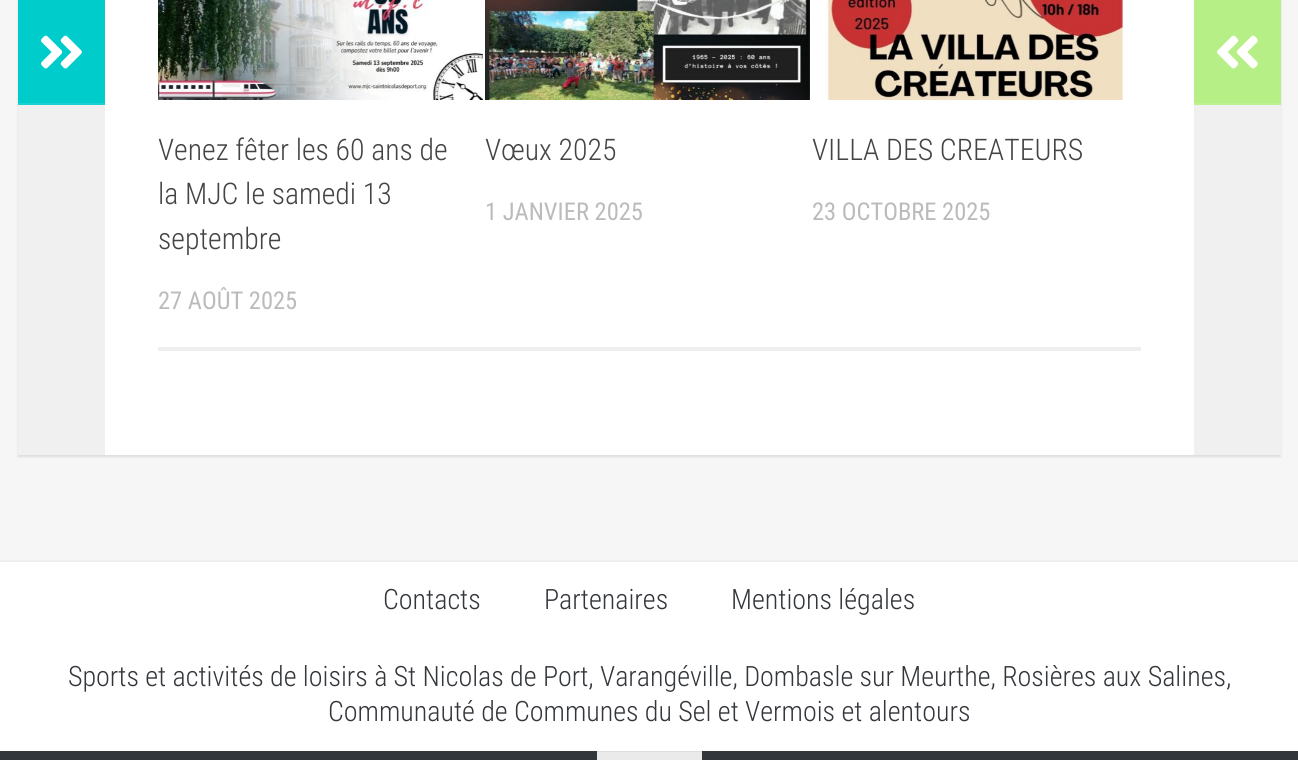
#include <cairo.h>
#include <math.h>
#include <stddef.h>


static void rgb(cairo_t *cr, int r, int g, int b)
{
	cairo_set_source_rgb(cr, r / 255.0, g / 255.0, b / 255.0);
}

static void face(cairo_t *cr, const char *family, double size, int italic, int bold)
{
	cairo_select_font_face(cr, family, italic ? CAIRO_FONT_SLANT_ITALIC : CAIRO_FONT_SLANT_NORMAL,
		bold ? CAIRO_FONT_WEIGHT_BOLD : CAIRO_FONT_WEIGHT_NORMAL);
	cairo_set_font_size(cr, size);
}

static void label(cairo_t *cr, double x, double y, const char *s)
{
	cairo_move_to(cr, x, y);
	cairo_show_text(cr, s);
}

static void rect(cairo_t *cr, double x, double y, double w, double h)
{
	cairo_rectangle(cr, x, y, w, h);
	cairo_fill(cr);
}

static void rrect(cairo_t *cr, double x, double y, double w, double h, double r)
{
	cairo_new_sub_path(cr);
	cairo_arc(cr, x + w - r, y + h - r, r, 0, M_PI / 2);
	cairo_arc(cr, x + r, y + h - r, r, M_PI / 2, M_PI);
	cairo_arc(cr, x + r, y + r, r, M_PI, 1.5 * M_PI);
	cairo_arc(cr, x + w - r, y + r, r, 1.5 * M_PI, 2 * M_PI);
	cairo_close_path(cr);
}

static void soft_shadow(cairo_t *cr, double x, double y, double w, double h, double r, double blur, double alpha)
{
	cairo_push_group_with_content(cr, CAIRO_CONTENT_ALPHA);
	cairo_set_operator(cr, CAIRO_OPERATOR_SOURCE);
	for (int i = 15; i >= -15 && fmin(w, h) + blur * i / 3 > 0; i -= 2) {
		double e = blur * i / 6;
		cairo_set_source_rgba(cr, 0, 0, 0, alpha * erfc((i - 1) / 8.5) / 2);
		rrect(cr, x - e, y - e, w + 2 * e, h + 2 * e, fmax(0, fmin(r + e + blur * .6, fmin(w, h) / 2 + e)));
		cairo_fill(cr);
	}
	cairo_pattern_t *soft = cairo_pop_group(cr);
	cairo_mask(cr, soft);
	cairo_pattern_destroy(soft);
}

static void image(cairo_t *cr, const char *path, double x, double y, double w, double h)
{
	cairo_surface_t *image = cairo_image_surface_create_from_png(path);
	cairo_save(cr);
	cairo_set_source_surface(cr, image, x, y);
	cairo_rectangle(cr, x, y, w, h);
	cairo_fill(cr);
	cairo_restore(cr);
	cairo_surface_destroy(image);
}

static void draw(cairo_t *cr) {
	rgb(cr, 247, 246, 246);
	cairo_paint(cr);
	rgb(cr, 0, 0, 0);
	soft_shadow(cr, 18, -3, 1263, 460, 0, 1, 0.1);
	rgb(cr, 255, 255, 255);
	rect(cr, 105, 0, 1089, 455);
	rgb(cr, 240, 240, 240);
	rect(cr, 18, 105, 87, 350);
	rgb(cr, 0, 204, 204);
	rect(cr, 18, 0, 87, 103);
	rgb(cr, 26, 209, 209);
	rect(cr, 18, 103, 87, 2);
	image(cr, "image0.png", 41, 35, 41, 34);
	rgb(cr, 182, 239, 134);
	rect(cr, 1194, 0, 87, 103);
	rgb(cr, 189, 241, 146);
	rect(cr, 1194, 103, 87, 2);
	image(cr, "image1.png", 1217, 35, 41, 34);
	rgb(cr, 238, 238, 238);
	rect(cr, 158, 347, 983, 4);
	image(cr, "image2.png", 158, 0, 325, 100);
	face(cr, "Roboto Condensed Light", 29.75, 0, 0);
	rgb(cr, 68, 68, 68);
	label(cr, 158, 160, "Venez fêter les 60 ans de");
	label(cr, 158, 204, "la MJC le samedi 13");
	label(cr, 158, 249, "septembre");
	face(cr, "Roboto Condensed", 24.5, 0, 0);
	rgb(cr, 187, 187, 187);
	label(cr, 158, 309, "27 AOÛT 2025");
	image(cr, "image3.png", 485, 0, 325, 100);
	face(cr, "Roboto Condensed Light", 29.75, 0, 0);
	rgb(cr, 68, 68, 68);
	label(cr, 485, 160, "Vœux 2025");
	face(cr, "Roboto Condensed", 24.5, 0, 0);
	rgb(cr, 187, 187, 187);
	label(cr, 485, 220, "1 JANVIER 2025");
	image(cr, "image4.png", 826, 0, 298, 100);
	face(cr, "Roboto Condensed Light", 29.75, 0, 0);
	rgb(cr, 68, 68, 68);
	label(cr, 812, 160, "VILLA DES CREATEURS");
	face(cr, "Roboto Condensed", 24.5, 0, 0);
	rgb(cr, 187, 187, 187);
	label(cr, 812, 220, "23 OCTOBRE 2025");
	rgb(cr, 240, 240, 240);
	rect(cr, 1194, 105, 87, 350);
	rgb(cr, 255, 255, 255);
	rect(cr, 0, 562, 1298, 189);
	rgb(cr, 238, 238, 238);
	rect(cr, 0, 560, 1298, 2);
	face(cr, "Roboto Condensed Light", 28, 0, 0);
	rgb(cr, 51, 54, 59);
	label(cr, 383, 609, "Contacts");
	label(cr, 544, 609, "Partenaires");
	label(cr, 731, 609, "Mentions légales");
	label(cr, 68, 686, "Sports et activités de loisirs à St Nicolas de Port, Varangéville, Dombasle sur Meurthe, Rosières aux Salines,");
	label(cr, 328, 721, "Communauté de Communes du Sel et Vermois et alentours");
	rect(cr, 0, 751, 1298, 9);
	rgb(cr, 234, 234, 234);
	rect(cr, 597, 752, 105, 8);
	rgb(cr, 222, 222, 222);
	rect(cr, 597, 751, 105, 1);
}

int main(void) {
	cairo_surface_t *surface = cairo_image_surface_create(CAIRO_FORMAT_RGB24, 1298, 760);
	cairo_t *cr = cairo_create(surface);
	cairo_font_options_t *options = cairo_font_options_create();
	cairo_font_options_set_hint_metrics(options, CAIRO_HINT_METRICS_OFF);
	cairo_font_options_set_hint_style(options, CAIRO_HINT_STYLE_NONE);
	cairo_set_font_options(cr, options);
	cairo_set_miter_limit(cr, 4);
	draw(cr);
	cairo_surface_write_to_png(surface, "render.png");
	cairo_font_options_destroy(options);
	cairo_destroy(cr);
	cairo_surface_destroy(surface);
	return 0;
}
